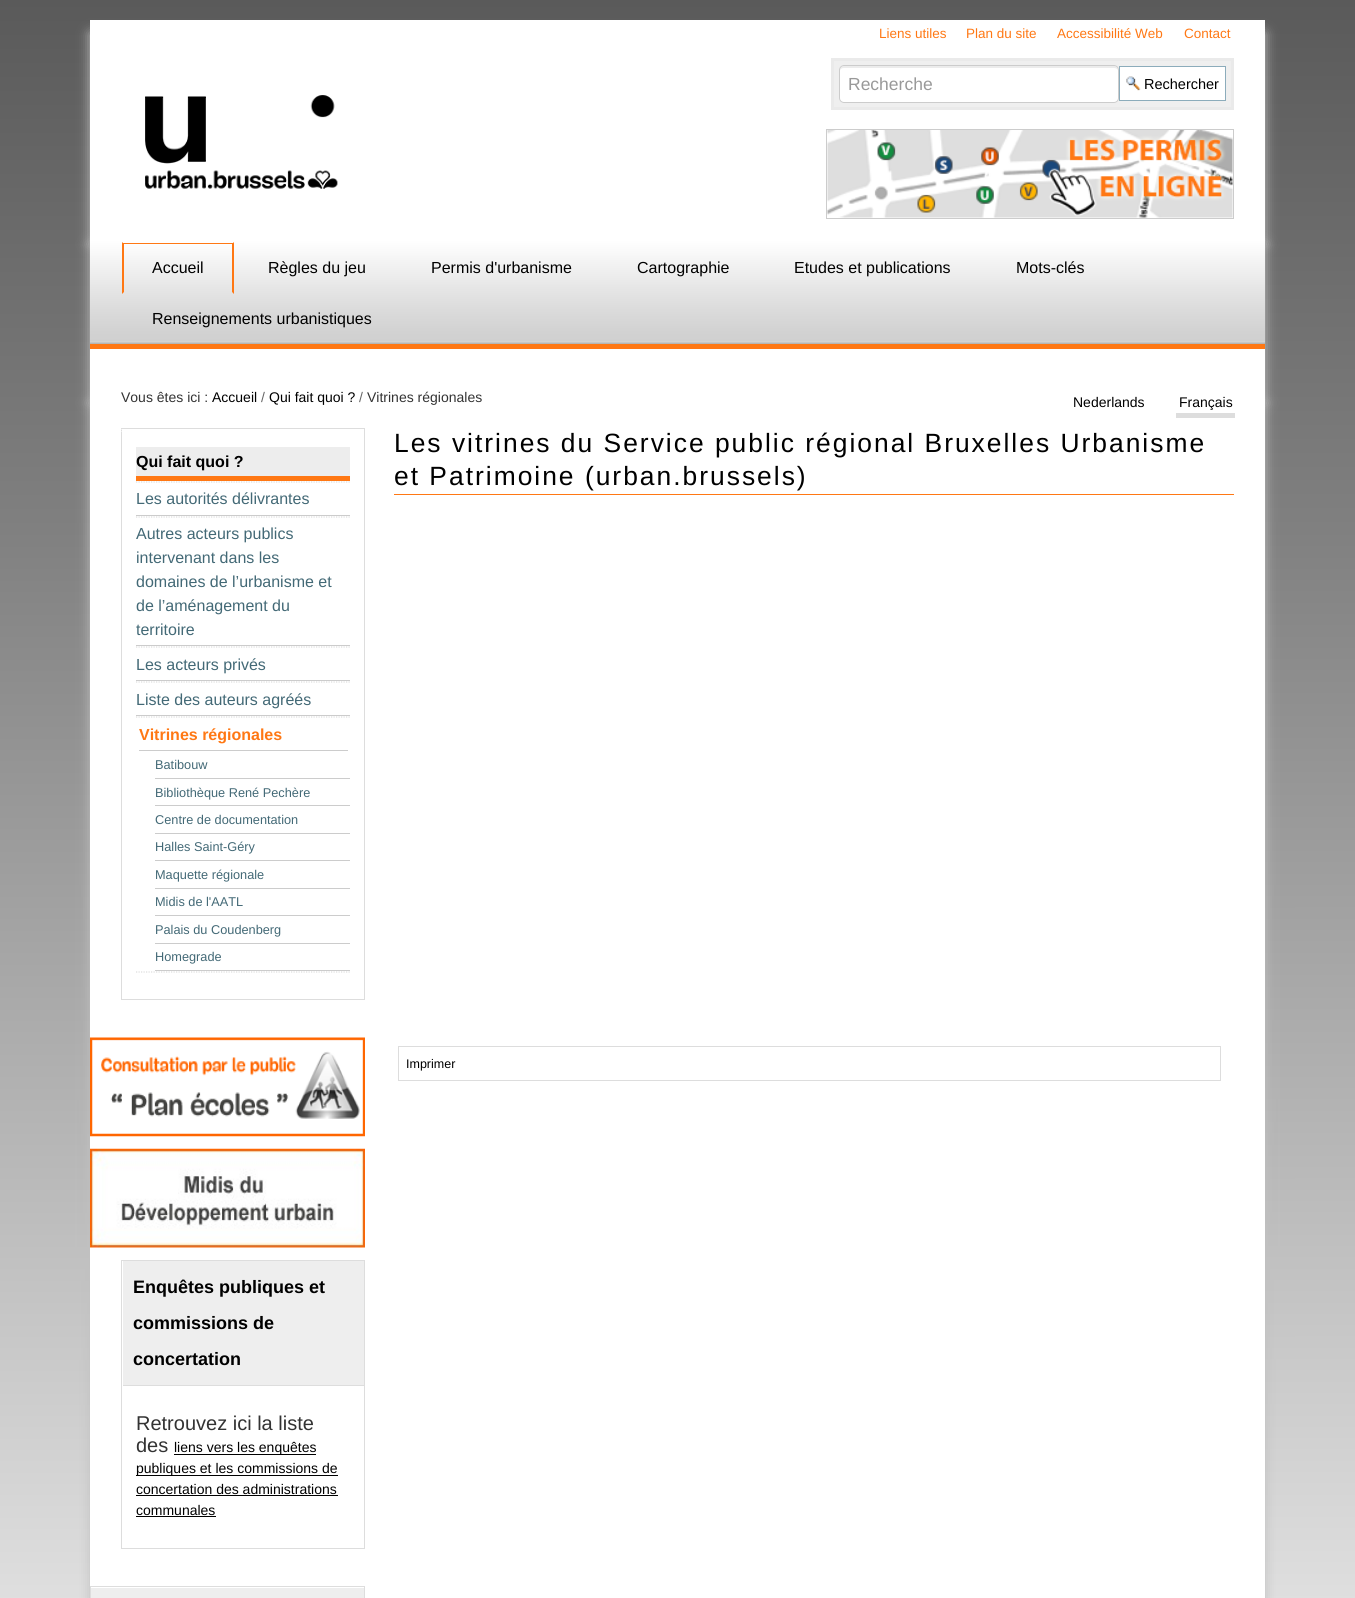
#include <cairo.h>
#include <math.h>
#include <stddef.h>


static void rgb(cairo_t *cr, int r, int g, int b)
{
	cairo_set_source_rgb(cr, r / 255.0, g / 255.0, b / 255.0);
}

static void face(cairo_t *cr, const char *family, double size, int italic, int bold)
{
	cairo_select_font_face(cr, family, italic ? CAIRO_FONT_SLANT_ITALIC : CAIRO_FONT_SLANT_NORMAL,
		bold ? CAIRO_FONT_WEIGHT_BOLD : CAIRO_FONT_WEIGHT_NORMAL);
	cairo_set_font_size(cr, size);
}

static void label(cairo_t *cr, double x, double y, const char *s)
{
	cairo_move_to(cr, x, y);
	cairo_show_text(cr, s);
}

static void tracked(cairo_t *cr, double x, double y, const char *s, double letter, double word)
{
	cairo_move_to(cr, x, y);
	while (*s) {
		char ch[5] = {0};
		int n = 0;
		do ch[n++] = *s++; while ((*s & 0xC0) == 0x80);
		cairo_show_text(cr, ch);
		cairo_rel_move_to(cr, letter + word * (*ch == ' '), 0);
	}
}

static void rect(cairo_t *cr, double x, double y, double w, double h)
{
	cairo_rectangle(cr, x, y, w, h);
	cairo_fill(cr);
}

static void rrect(cairo_t *cr, double x, double y, double w, double h, double r)
{
	cairo_new_sub_path(cr);
	cairo_arc(cr, x + w - r, y + h - r, r, 0, M_PI / 2);
	cairo_arc(cr, x + r, y + h - r, r, M_PI / 2, M_PI);
	cairo_arc(cr, x + r, y + r, r, M_PI, 1.5 * M_PI);
	cairo_arc(cr, x + w - r, y + r, r, 1.5 * M_PI, 2 * M_PI);
	cairo_close_path(cr);
}

static void soft_shadow(cairo_t *cr, double x, double y, double w, double h, double r, double blur, double alpha)
{
	cairo_push_group_with_content(cr, CAIRO_CONTENT_ALPHA);
	cairo_set_operator(cr, CAIRO_OPERATOR_SOURCE);
	for (int i = 15; i >= -15 && fmin(w, h) + blur * i / 3 > 0; i -= 2) {
		double e = blur * i / 6;
		cairo_set_source_rgba(cr, 0, 0, 0, alpha * erfc((i - 1) / 8.5) / 2);
		rrect(cr, x - e, y - e, w + 2 * e, h + 2 * e, fmax(0, fmin(r + e + blur * .6, fmin(w, h) / 2 + e)));
		cairo_fill(cr);
	}
	cairo_pattern_t *soft = cairo_pop_group(cr);
	cairo_mask(cr, soft);
	cairo_pattern_destroy(soft);
}

static void image(cairo_t *cr, const char *path, double x, double y, double w, double h)
{
	cairo_surface_t *image = cairo_image_surface_create_from_png(path);
	cairo_save(cr);
	cairo_set_source_surface(cr, image, x, y);
	cairo_rectangle(cr, x, y, w, h);
	cairo_fill(cr);
	cairo_restore(cr);
	cairo_surface_destroy(image);
}

static void draw(cairo_t *cr) {
	cairo_pattern_t *gradient;
	rgb(cr, 255, 255, 255);
	cairo_paint(cr);
	gradient = cairo_pattern_create_linear(677, 0, 678, 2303);
	cairo_pattern_add_color_stop_rgba(gradient, 0, 0.353, 0.353, 0.353, 1);
	cairo_pattern_add_color_stop_rgba(gradient, 0.23, 0.502, 0.502, 0.502, 1);
	cairo_pattern_add_color_stop_rgba(gradient, 0.72, 0.894, 0.894, 0.894, 1);
	cairo_pattern_add_color_stop_rgba(gradient, 0.94, 1, 1, 1, 1);
	cairo_pattern_add_color_stop_rgba(gradient, 1, 1, 1, 1, 1);
	cairo_set_source(cr, gradient);
	cairo_pattern_destroy(gradient);
	rect(cr, 0, 0, 1355, 1598);
	rgb(cr, 192, 192, 192);
	soft_shadow(cr, 90, 33, 1175, 211, 0, 6, 1);
	rgb(cr, 255, 255, 255);
	rect(cr, 90, 20, 1175, 211);
	face(cr, "Liberation Sans", 13.5, 0, 0);
	rgb(cr, 255, 120, 20);
	label(cr, 879, 38, "Liens utiles");
	label(cr, 966, 38, "Plan du site");
	label(cr, 1057, 38, "Accessibilité Web");
	label(cr, 1184, 38, "Contact");
	rgb(cr, 239, 239, 239);
	cairo_rectangle(cr, 832.5, 59.5, 400, 49);
	cairo_fill_preserve(cr);
	rgb(cr, 234, 234, 234);
	cairo_set_line_width(cr, 3);
	cairo_stroke(cr);
	rgb(cr, 255, 255, 255);
	rrect(cr, 839, 65, 280, 38, 5);
	cairo_fill(cr);
	rgb(cr, 236, 236, 236);
	cairo_new_path(cr);
	cairo_move_to(cr, 844, 68);
	cairo_line_to(cr, 1114, 68);
	cairo_curve_to(cr, 1116, 68, 1118, 69, 1118, 71);
	cairo_curve_to(cr, 1118, 68, 1117, 66, 1114, 66);
	cairo_line_to(cr, 844, 66);
	cairo_curve_to(cr, 841, 66, 840, 68, 840, 71);
	cairo_curve_to(cr, 840, 69, 842, 68, 844, 68);
	cairo_close_path(cr);
	cairo_fill(cr);
	rrect(cr, 839.5, 65.5, 279, 37, 4.5);
	rgb(cr, 204, 204, 204);
	cairo_set_line_width(cr, 1);
	cairo_stroke(cr);
	face(cr, "Liberation Sans", 17.5, 0, 0);
	rgb(cr, 153, 153, 153);
	label(cr, 848, 90, "Recherche");
	rgb(cr, 255, 255, 255);
	rect(cr, 1120, 67, 105, 33);
	image(cr, "image0.png", 1126, 76, 15, 15);
	cairo_rectangle(cr, 1119.5, 66.5, 106, 34);
	rgb(cr, 140, 172, 187);
	cairo_stroke(cr);
	face(cr, "Liberation Sans", 14.5, 0, 0);
	rgb(cr, 0, 0, 0);
	label(cr, 1144, 89, "Rechercher");
	cairo_rectangle(cr, 826.5, 129.5, 407, 89);
	rgb(cr, 204, 204, 204);
	cairo_stroke(cr);
	image(cr, "image1.png", 827, 130, 406, 88);
	image(cr, "image2.png", 145, 95, 193, 94);
	rgb(cr, 192, 192, 192);
	soft_shadow(cr, 90, 244, 1175, 159, 0, 6, 1);
	rgb(cr, 255, 255, 255);
	rect(cr, 90, 349, 1175, 41);
	gradient = cairo_pattern_create_linear(678, 231, 678, 344);
	cairo_pattern_add_color_stop_rgba(gradient, 0, 1, 1, 1, 1);
	cairo_pattern_add_color_stop_rgba(gradient, 0.08, 1, 1, 1, 1);
	cairo_pattern_add_color_stop_rgba(gradient, 0.66, 0.867, 0.867, 0.867, 1);
	cairo_pattern_add_color_stop_rgba(gradient, 0.89, 0.824, 0.824, 0.824, 1);
	cairo_pattern_add_color_stop_rgba(gradient, 0.97, 0.816, 0.816, 0.816, 1);
	cairo_pattern_add_color_stop_rgba(gradient, 0.98, 0.835, 0.835, 0.827, 1);
	cairo_pattern_add_color_stop_rgba(gradient, 1, 0.678, 0.678, 0.678, 1);
	cairo_set_source(cr, gradient);
	cairo_pattern_destroy(gradient);
	rect(cr, 90, 231, 1175, 113);
	rgb(cr, 255, 120, 20);
	rect(cr, 90, 344, 1175, 5);
	rect(cr, 123, 243, 111, 1);
	cairo_new_path(cr);
	cairo_move_to(cr, 234, 242);
	cairo_line_to(cr, 234, 294);
	cairo_line_to(cr, 232, 292);
	cairo_line_to(cr, 232, 244);
	cairo_close_path(cr);
	cairo_fill(cr);
	cairo_new_path(cr);
	cairo_move_to(cr, 122, 294);
	cairo_line_to(cr, 122, 242);
	cairo_line_to(cr, 124, 244);
	cairo_line_to(cr, 124, 292);
	cairo_close_path(cr);
	cairo_fill(cr);
	face(cr, "Liberation Sans", 16, 0, 0);
	rgb(cr, 0, 0, 0);
	label(cr, 152, 273, "Accueil");
	label(cr, 268, 273, "Règles du jeu");
	label(cr, 431, 273, "Permis d'urbanisme");
	label(cr, 637, 273, "Cartographie");
	label(cr, 794, 273, "Etudes et publications");
	label(cr, 1016, 273, "Mots-clés");
	label(cr, 152, 324, "Renseignements urbanistiques");
	rgb(cr, 192, 192, 192);
	soft_shadow(cr, 90, 403, 1175, 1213, 0, 6, 1);
	rgb(cr, 255, 255, 255);
	rect(cr, 90, 390, 1175, 1208);
	face(cr, "Liberation Sans", 14, 0, 0);
	rgb(cr, 51, 51, 51);
	label(cr, 121, 402, "Vous êtes ici :");
	rgb(cr, 0, 0, 0);
	label(cr, 212, 402, "Accueil");
	rgb(cr, 102, 102, 102);
	label(cr, 261, 402, "/");
	rgb(cr, 0, 0, 0);
	label(cr, 269, 402, "Qui fait quoi ?");
	rgb(cr, 102, 102, 102);
	label(cr, 359, 402, "/");
	rgb(cr, 51, 51, 51);
	label(cr, 367, 402, "Vitrines régionales");
	rgb(cr, 0, 0, 0);
	label(cr, 1073, 407, "Nederlands");
	label(cr, 1179, 407, "Français");
	rgb(cr, 221, 221, 221);
	rect(cr, 1176, 413, 59, 5);
	cairo_rectangle(cr, 121.5, 428.5, 243, 571);
	cairo_stroke(cr);
	rgb(cr, 238, 238, 238);
	rect(cr, 121, 429, 1, 3);
	rgb(cr, 221, 221, 221);
	rect(cr, 121, 430, 1, 1);
	cairo_new_path(cr);
	cairo_move_to(cr, 136, 482);
	cairo_line_to(cr, 350, 482);
	cairo_set_line_width(cr, 1.2);
	cairo_set_dash(cr, (double[]){1.25, 1.25}, 2, 0);
	cairo_stroke(cr);
	rgb(cr, 237, 237, 237);
	rect(cr, 136, 447, 214, 29);
	rgb(cr, 255, 120, 20);
	rect(cr, 136, 476, 214, 5);
	face(cr, "Liberation Sans", 16, 0, 1);
	rgb(cr, 0, 0, 0);
	label(cr, 136, 467, "Qui fait quoi ?");
	cairo_new_path(cr);
	cairo_move_to(cr, 136, 517);
	cairo_line_to(cr, 350, 517);
	rgb(cr, 221, 221, 221);
	cairo_stroke(cr);
	rgb(cr, 204, 204, 204);
	rect(cr, 136, 515, 214, 1);
	face(cr, "Liberation Sans", 16, 0, 0);
	rgb(cr, 67, 105, 118);
	label(cr, 136, 504, "Les autorités délivrantes");
	cairo_new_path(cr);
	cairo_move_to(cr, 136, 647);
	cairo_line_to(cr, 350, 647);
	rgb(cr, 221, 221, 221);
	cairo_stroke(cr);
	rgb(cr, 204, 204, 204);
	rect(cr, 136, 645, 214, 1);
	rgb(cr, 67, 105, 118);
	label(cr, 136, 539, "Autres acteurs publics");
	label(cr, 136, 563, "intervenant dans les");
	label(cr, 136, 587, "domaines de l’urbanisme et");
	label(cr, 136, 611, "de l’aménagement du");
	label(cr, 136, 635, "territoire");
	cairo_new_path(cr);
	cairo_move_to(cr, 136, 682);
	cairo_line_to(cr, 350, 682);
	rgb(cr, 221, 221, 221);
	cairo_stroke(cr);
	rgb(cr, 204, 204, 204);
	rect(cr, 136, 680, 214, 1);
	rgb(cr, 67, 105, 118);
	label(cr, 136, 670, "Les acteurs privés");
	cairo_new_path(cr);
	cairo_move_to(cr, 136, 717);
	cairo_line_to(cr, 350, 717);
	rgb(cr, 221, 221, 221);
	cairo_stroke(cr);
	rgb(cr, 204, 204, 204);
	rect(cr, 136, 715, 214, 1);
	rgb(cr, 67, 105, 118);
	label(cr, 136, 705, "Liste des auteurs agréés");
	cairo_new_path(cr);
	cairo_move_to(cr, 136, 972);
	cairo_line_to(cr, 350, 972);
	rgb(cr, 221, 221, 221);
	cairo_stroke(cr);
	rgb(cr, 204, 204, 204);
	rect(cr, 139, 750, 209, 1);
	face(cr, "Liberation Sans", 16, 0, 1);
	rgb(cr, 255, 120, 20);
	label(cr, 139, 740, "Vitrines régionales");
	rgb(cr, 204, 204, 204);
	rect(cr, 155, 778, 195, 1);
	face(cr, "Liberation Sans", 12.75, 0, 0);
	rgb(cr, 67, 105, 118);
	label(cr, 155, 769, "Batibouw");
	rgb(cr, 204, 204, 204);
	rect(cr, 155, 805, 195, 1);
	rgb(cr, 67, 105, 118);
	label(cr, 155, 797, "Bibliothèque René Pechère");
	rgb(cr, 204, 204, 204);
	rect(cr, 155, 833, 195, 1);
	rgb(cr, 67, 105, 118);
	label(cr, 155, 824, "Centre de documentation");
	rgb(cr, 204, 204, 204);
	rect(cr, 155, 860, 195, 1);
	rgb(cr, 67, 105, 118);
	label(cr, 155, 851, "Halles Saint-Géry");
	rgb(cr, 204, 204, 204);
	rect(cr, 155, 888, 195, 1);
	rgb(cr, 67, 105, 118);
	label(cr, 155, 879, "Maquette régionale");
	rgb(cr, 204, 204, 204);
	rect(cr, 155, 915, 195, 1);
	rgb(cr, 67, 105, 118);
	label(cr, 155, 906, "Midis de l'AATL");
	rgb(cr, 204, 204, 204);
	rect(cr, 155, 943, 195, 1);
	rgb(cr, 67, 105, 118);
	label(cr, 155, 934, "Palais du Coudenberg");
	rgb(cr, 204, 204, 204);
	rect(cr, 155, 970, 195, 1);
	rgb(cr, 67, 105, 118);
	label(cr, 155, 961, "Homegrade");
	image(cr, "image3.png", 90, 1037, 275, 100);
	image(cr, "image4.png", 90, 1148, 275, 100);
	cairo_rectangle(cr, 121.5, 1260.5, 243, 288);
	rgb(cr, 221, 221, 221);
	cairo_set_line_width(cr, 1);
	cairo_set_dash(cr, NULL, 0, 0);
	cairo_stroke(cr);
	rgb(cr, 238, 238, 238);
	rect(cr, 123, 1261, 241, 124);
	rgb(cr, 221, 221, 221);
	rect(cr, 123, 1385, 241, 1);
	face(cr, "Liberation Sans", 18, 0, 1);
	rgb(cr, 0, 0, 0);
	label(cr, 133, 1293, "Enquêtes publiques et");
	label(cr, 133, 1329, "commissions de");
	label(cr, 133, 1365, "concertation");
	face(cr, "Liberation Sans", 20, 0, 0);
	rgb(cr, 51, 51, 51);
	label(cr, 136, 1430, "Retrouvez ici la liste");
	label(cr, 136, 1452, "des");
	rgb(cr, 0, 0, 0);
	rect(cr, 174, 1454, 142, 1);
	face(cr, "Liberation Sans", 14, 0, 0);
	label(cr, 174, 1452, "liens vers les enquêtes");
	rect(cr, 136, 1475, 202, 1);
	label(cr, 136, 1473, "publiques et les commissions de");
	label(cr, 136, 1494, "concertation des administrations");
	rect(cr, 136, 1495, 202, 1);
	label(cr, 136, 1515, "communales");
	rect(cr, 136, 1516, 80, 1);
	cairo_rectangle(cr, 90.5, 1586.5, 274, 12);
	rgb(cr, 221, 221, 221);
	cairo_stroke(cr);
	rgb(cr, 238, 238, 238);
	rect(cr, 91, 1588, 273, 10);
	rgb(cr, 255, 120, 20);
	rect(cr, 394, 494, 840, 1);
	face(cr, "Liberation Sans", 26.4, 0, 0);
	rgb(cr, 0, 0, 0);
	tracked(cr, 394, 452, "Les vitrines du Service public régional Bruxelles Urbanisme", 2, 0);
	tracked(cr, 394, 485, "et Patrimoine (urban.brussels)", 2, 0);
	cairo_rectangle(cr, 398.5, 1046.5, 822, 34);
	rgb(cr, 221, 221, 221);
	cairo_stroke(cr);
	face(cr, "Liberation Sans", 12.5, 0, 0);
	rgb(cr, 0, 0, 0);
	label(cr, 406, 1068, "Imprimer");
}

int main(void) {
	cairo_surface_t *surface = cairo_image_surface_create(CAIRO_FORMAT_RGB24, 1355, 1598);
	cairo_t *cr = cairo_create(surface);
	cairo_font_options_t *options = cairo_font_options_create();
	cairo_font_options_set_hint_metrics(options, CAIRO_HINT_METRICS_OFF);
	cairo_font_options_set_hint_style(options, CAIRO_HINT_STYLE_NONE);
	cairo_set_font_options(cr, options);
	cairo_set_miter_limit(cr, 4);
	draw(cr);
	cairo_surface_write_to_png(surface, "render.png");
	cairo_font_options_destroy(options);
	cairo_destroy(cr);
	cairo_surface_destroy(surface);
	return 0;
}
